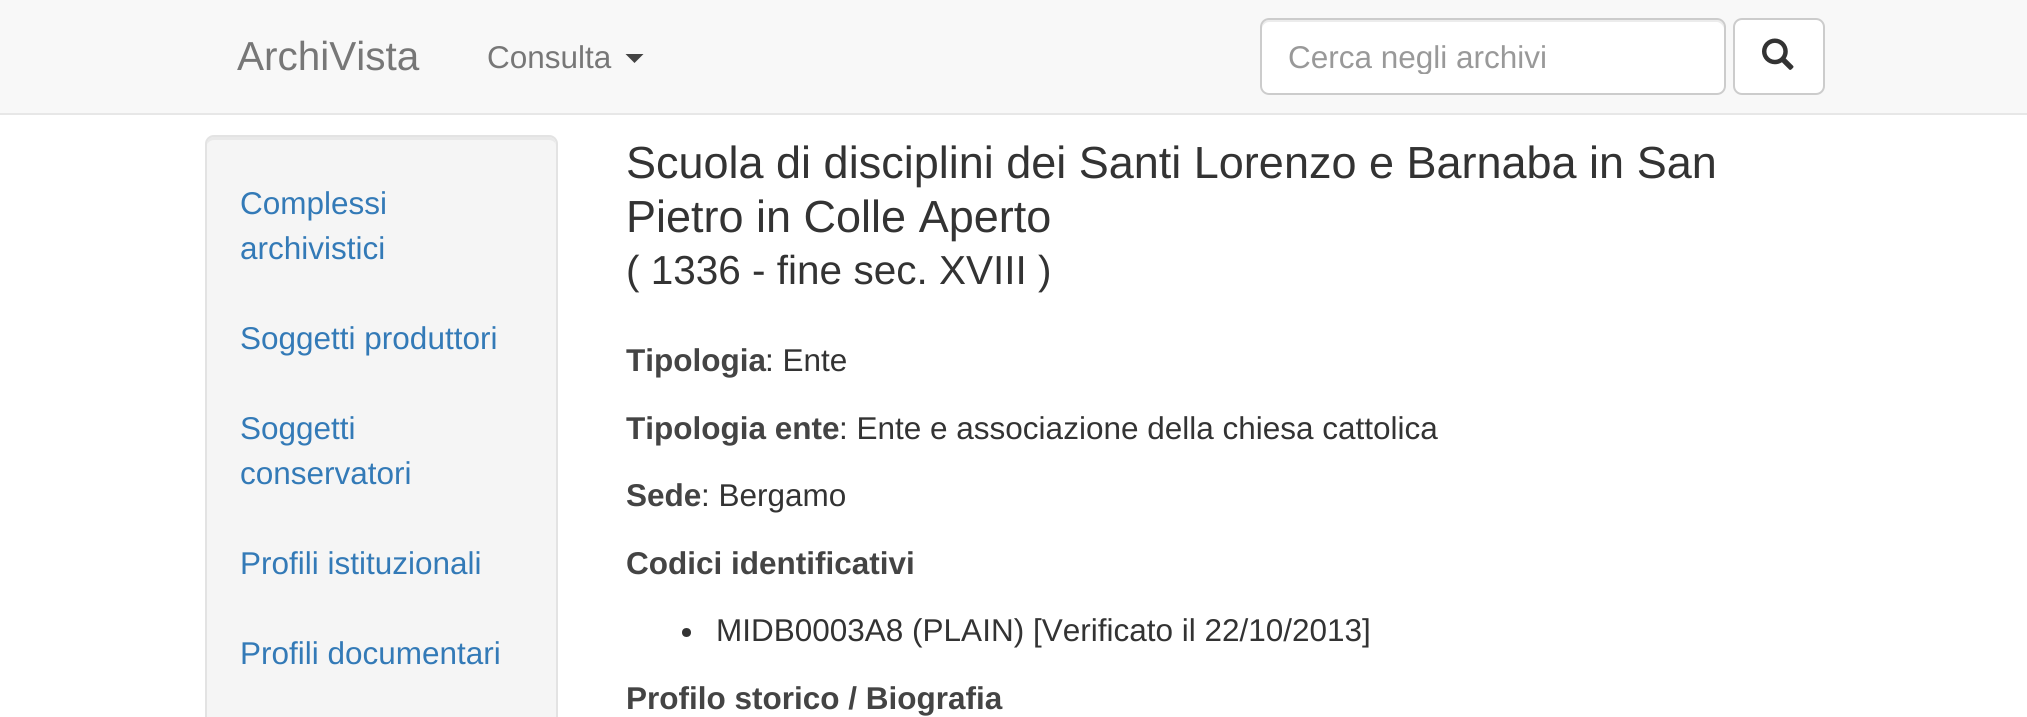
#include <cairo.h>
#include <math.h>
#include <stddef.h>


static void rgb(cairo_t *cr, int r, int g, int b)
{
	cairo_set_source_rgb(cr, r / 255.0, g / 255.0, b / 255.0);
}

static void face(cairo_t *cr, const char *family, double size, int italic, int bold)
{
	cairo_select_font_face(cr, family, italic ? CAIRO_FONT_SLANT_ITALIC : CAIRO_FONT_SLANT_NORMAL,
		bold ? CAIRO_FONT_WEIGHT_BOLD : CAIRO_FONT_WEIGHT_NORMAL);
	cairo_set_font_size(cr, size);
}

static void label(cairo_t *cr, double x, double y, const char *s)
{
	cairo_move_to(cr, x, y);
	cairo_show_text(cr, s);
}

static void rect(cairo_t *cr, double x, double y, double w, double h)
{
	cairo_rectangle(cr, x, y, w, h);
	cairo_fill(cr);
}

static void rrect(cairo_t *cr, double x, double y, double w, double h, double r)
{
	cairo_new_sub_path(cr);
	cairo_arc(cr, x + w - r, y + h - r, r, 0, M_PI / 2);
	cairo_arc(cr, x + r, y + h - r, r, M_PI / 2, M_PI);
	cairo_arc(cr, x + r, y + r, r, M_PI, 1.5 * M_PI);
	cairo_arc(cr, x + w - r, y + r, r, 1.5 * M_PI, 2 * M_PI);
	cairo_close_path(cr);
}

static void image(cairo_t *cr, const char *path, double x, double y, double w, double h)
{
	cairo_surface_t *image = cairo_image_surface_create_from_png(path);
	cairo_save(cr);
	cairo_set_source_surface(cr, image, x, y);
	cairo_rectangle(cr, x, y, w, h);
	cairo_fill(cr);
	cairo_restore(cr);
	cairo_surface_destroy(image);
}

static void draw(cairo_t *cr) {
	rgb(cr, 255, 255, 255);
	cairo_paint(cr);
	rgb(cr, 248, 248, 248);
	rect(cr, 0, 0, 2027, 113);
	rgb(cr, 231, 231, 231);
	rect(cr, 0, 113, 2027, 2);
	face(cr, "Liberation Sans", 40.5, 0, 0);
	rgb(cr, 119, 119, 119);
	label(cr, 237, 70, "ArchiVista");
	face(cr, "Liberation Sans", 31.5, 0, 0);
	label(cr, 487, 68, "Consulta");
	rgb(cr, 68, 68, 68);
	cairo_new_path(cr);
	cairo_move_to(cr, 625.5, 54);
	cairo_line_to(cr, 643.5, 54);
	cairo_line_to(cr, 634.5, 63);
	cairo_close_path(cr);
	cairo_fill(cr);
	rgb(cr, 255, 255, 255);
	rrect(cr, 1260, 18, 466, 77, 9);
	cairo_fill(cr);
	rgb(cr, 236, 236, 236);
	cairo_new_path(cr);
	cairo_move_to(cr, 1269, 22);
	cairo_line_to(cr, 1717, 22);
	cairo_curve_to(cr, 1720, 22, 1724, 26, 1724, 29);
	cairo_line_to(cr, 1724, 27);
	cairo_curve_to(cr, 1724, 23, 1721, 20, 1717, 20);
	cairo_line_to(cr, 1269, 20);
	cairo_curve_to(cr, 1265, 20, 1262, 23, 1262, 27);
	cairo_line_to(cr, 1262, 29);
	cairo_curve_to(cr, 1262, 26, 1265, 22, 1269, 22);
	cairo_close_path(cr);
	cairo_fill(cr);
	rrect(cr, 1261, 19, 464, 75, 8);
	rgb(cr, 204, 204, 204);
	cairo_stroke(cr);
	cairo_save(cr);
	cairo_rectangle(cr, 1289, 38, 408, 36);
	cairo_clip(cr);
	rgb(cr, 153, 153, 153);
	label(cr, 1288, 68, "Cerca negli archivi");
	cairo_restore(cr);
	rgb(cr, 255, 255, 255);
	rrect(cr, 1734, 19, 90, 75, 8);
	cairo_fill_preserve(cr);
	rgb(cr, 204, 204, 204);
	cairo_stroke(cr);
	image(cr, "image0.png", 1762, 38, 32, 32);
	rgb(cr, 245, 245, 245);
	rrect(cr, 205, 135, 353, 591, 9);
	cairo_fill(cr);
	rgb(cr, 233, 233, 233);
	cairo_new_path(cr);
	cairo_move_to(cr, 214, 140);
	cairo_line_to(cr, 549, 140);
	cairo_curve_to(cr, 553, 140, 556, 143, 556, 146);
	cairo_curve_to(cr, 556, 142, 554, 137, 549, 137);
	cairo_line_to(cr, 213, 137);
	cairo_curve_to(cr, 208, 138, 207, 142, 207, 146);
	cairo_curve_to(cr, 207, 143, 210, 140, 214, 140);
	cairo_close_path(cr);
	cairo_fill(cr);
	rrect(cr, 206, 136, 351, 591, 8);
	rgb(cr, 227, 227, 227);
	cairo_stroke(cr);
	rgb(cr, 51, 122, 183);
	label(cr, 240, 214, "Complessi");
	label(cr, 240, 259, "archivistici");
	label(cr, 240, 349, "Soggetti produttori");
	label(cr, 240, 439, "Soggetti");
	label(cr, 240, 484, "conservatori");
	label(cr, 240, 574, "Profili istituzionali");
	label(cr, 240, 664, "Profili documentari");
	face(cr, "Liberation Sans", 45, 0, 0);
	rgb(cr, 51, 51, 51);
	label(cr, 626, 178, "Scuola di disciplini dei Santi Lorenzo e Barnaba in San");
	label(cr, 626, 232, "Pietro in Colle Aperto");
	face(cr, "Liberation Sans", 40.5, 0, 0);
	label(cr, 626, 284, "( 1336 - fine sec. XVIII )");
	face(cr, "Liberation Sans", 31.5, 0, 1);
	rgb(cr, 68, 68, 68);
	label(cr, 626, 371, "Tipologia");
	face(cr, "Liberation Sans", 31.5, 0, 0);
	rgb(cr, 51, 51, 51);
	label(cr, 765, 371, ": Ente");
	face(cr, "Liberation Sans", 31.5, 0, 1);
	rgb(cr, 68, 68, 68);
	label(cr, 626, 439, "Tipologia ente");
	face(cr, "Liberation Sans", 31.5, 0, 0);
	rgb(cr, 51, 51, 51);
	label(cr, 839, 439, ": Ente e associazione della chiesa cattolica");
	face(cr, "Liberation Sans", 31.5, 0, 1);
	rgb(cr, 68, 68, 68);
	label(cr, 626, 506, "Sede");
	face(cr, "Liberation Sans", 31.5, 0, 0);
	rgb(cr, 51, 51, 51);
	label(cr, 701, 506, ": Bergamo");
	face(cr, "Liberation Sans", 31.5, 0, 1);
	rgb(cr, 68, 68, 68);
	label(cr, 626, 574, "Codici identificativi");
	rgb(cr, 51, 51, 51);
	cairo_new_path(cr);
	cairo_arc(cr, 686.5, 632.5, 4.5, 0, 2 * M_PI);
	cairo_fill(cr);
	face(cr, "Liberation Sans", 31.5, 0, 0);
	label(cr, 716, 641, "MIDB0003A8 (PLAIN) [Verificato il 22/10/2013]");
	face(cr, "Liberation Sans", 31.5, 0, 1);
	rgb(cr, 68, 68, 68);
	label(cr, 626, 709, "Profilo storico / Biografia");
}

int main(void) {
	cairo_surface_t *surface = cairo_image_surface_create(CAIRO_FORMAT_RGB24, 2027, 717);
	cairo_t *cr = cairo_create(surface);
	cairo_font_options_t *options = cairo_font_options_create();
	cairo_font_options_set_hint_metrics(options, CAIRO_HINT_METRICS_OFF);
	cairo_font_options_set_hint_style(options, CAIRO_HINT_STYLE_NONE);
	cairo_set_font_options(cr, options);
	cairo_set_miter_limit(cr, 4);
	draw(cr);
	cairo_surface_write_to_png(surface, "render.png");
	cairo_font_options_destroy(options);
	cairo_destroy(cr);
	cairo_surface_destroy(surface);
	return 0;
}
